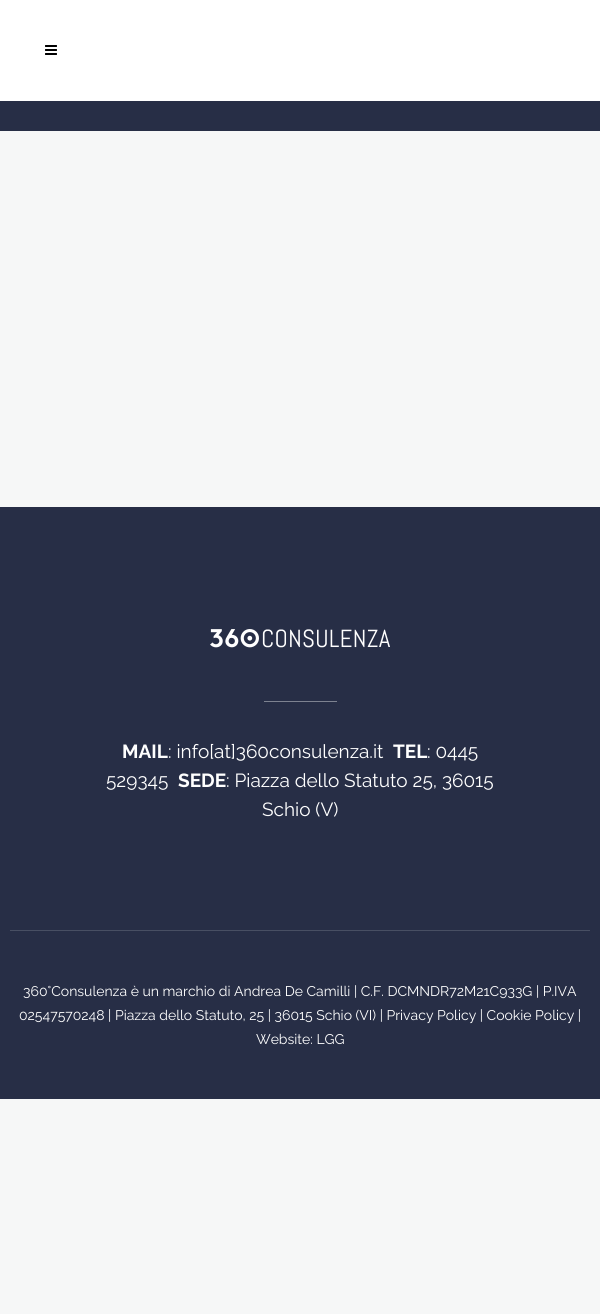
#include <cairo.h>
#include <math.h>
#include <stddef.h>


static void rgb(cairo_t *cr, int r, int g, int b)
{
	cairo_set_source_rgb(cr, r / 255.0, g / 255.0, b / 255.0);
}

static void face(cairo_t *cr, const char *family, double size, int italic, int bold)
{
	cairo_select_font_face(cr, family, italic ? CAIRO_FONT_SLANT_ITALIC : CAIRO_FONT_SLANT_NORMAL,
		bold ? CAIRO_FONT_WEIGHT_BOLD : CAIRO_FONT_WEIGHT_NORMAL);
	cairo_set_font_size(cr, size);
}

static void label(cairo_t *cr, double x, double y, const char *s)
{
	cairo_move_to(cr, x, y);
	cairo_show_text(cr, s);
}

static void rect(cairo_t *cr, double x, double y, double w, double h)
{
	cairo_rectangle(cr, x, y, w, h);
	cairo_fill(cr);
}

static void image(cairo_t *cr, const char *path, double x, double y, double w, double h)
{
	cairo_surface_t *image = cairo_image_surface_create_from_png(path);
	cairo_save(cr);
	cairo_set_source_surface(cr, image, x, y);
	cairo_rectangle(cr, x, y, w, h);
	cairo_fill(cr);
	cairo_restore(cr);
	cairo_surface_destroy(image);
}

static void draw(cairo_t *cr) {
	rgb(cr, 246, 247, 247);
	cairo_paint(cr);
	rgb(cr, 255, 255, 255);
	rect(cr, 0, 0, 600, 101);
	image(cr, "image0.png", 45, 45, 12, 10);
	rgb(cr, 39, 46, 70);
	rect(cr, 0, 101, 600, 30);
	rect(cr, 0, 507, 600, 592);
	image(cr, "image1.png", 210, 629, 180, 19);
	rgb(cr, 125, 130, 144);
	rect(cr, 264, 701, 73, 1);
	face(cr, "Raleway", 19, 0, 1);
	rgb(cr, 255, 255, 255);
	label(cr, 122, 758, "MAIL");
	face(cr, "Raleway", 19, 0, 0);
	label(cr, 168, 758, ": info[at]360consulenza.it");
	face(cr, "Raleway", 19, 0, 1);
	label(cr, 393, 758, "TEL");
	face(cr, "Raleway", 19, 0, 0);
	label(cr, 427, 758, ": 0445");
	label(cr, 106, 787, "529345");
	face(cr, "Raleway", 19, 0, 1);
	label(cr, 178, 787, "SEDE");
	face(cr, "Raleway", 19, 0, 0);
	label(cr, 226, 787, ": Piazza dello Statuto 25, 36015");
	label(cr, 262, 816, "Schio (V)");
	rgb(cr, 72, 79, 99);
	rect(cr, 10, 930, 580, 1);
	face(cr, "Raleway", 14, 0, 0);
	rgb(cr, 255, 255, 255);
	label(cr, 23, 996, "360°Consulenza è un marchio di Andrea De Camilli | C.F. DCMNDR72M21C933G | P.IVA");
	label(cr, 19, 1020, "02547570248 | Piazza dello Statuto, 25 | 36015 Schio (VI) | Privacy Policy | Cookie Policy |");
	label(cr, 256, 1044, "Website: LGG");
}

int main(void) {
	cairo_surface_t *surface = cairo_image_surface_create(CAIRO_FORMAT_RGB24, 600, 1314);
	cairo_t *cr = cairo_create(surface);
	cairo_font_options_t *options = cairo_font_options_create();
	cairo_font_options_set_hint_metrics(options, CAIRO_HINT_METRICS_OFF);
	cairo_font_options_set_hint_style(options, CAIRO_HINT_STYLE_NONE);
	cairo_set_font_options(cr, options);
	cairo_set_miter_limit(cr, 4);
	draw(cr);
	cairo_surface_write_to_png(surface, "render.png");
	cairo_font_options_destroy(options);
	cairo_destroy(cr);
	cairo_surface_destroy(surface);
	return 0;
}
